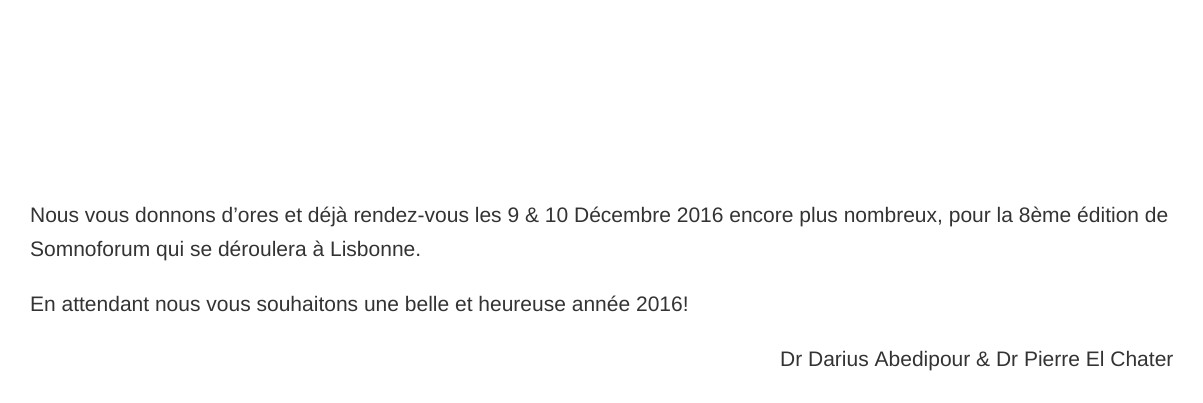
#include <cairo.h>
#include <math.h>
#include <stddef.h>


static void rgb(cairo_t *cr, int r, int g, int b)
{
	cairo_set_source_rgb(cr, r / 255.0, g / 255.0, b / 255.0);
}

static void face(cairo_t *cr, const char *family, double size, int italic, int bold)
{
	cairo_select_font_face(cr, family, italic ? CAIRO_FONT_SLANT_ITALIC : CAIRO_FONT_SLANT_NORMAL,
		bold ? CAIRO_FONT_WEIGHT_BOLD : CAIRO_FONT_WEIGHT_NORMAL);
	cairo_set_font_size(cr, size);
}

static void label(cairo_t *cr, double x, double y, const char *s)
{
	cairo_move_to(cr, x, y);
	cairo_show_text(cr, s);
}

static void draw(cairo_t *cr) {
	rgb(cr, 255, 255, 255);
	cairo_paint(cr);
	face(cr, "Liberation Sans", 21, 0, 0);
	rgb(cr, 51, 51, 51);
	label(cr, 30, 222, "Nous vous donnons d’ores et déjà rendez-vous les 9 & 10 Décembre 2016 encore plus nombreux, pour la 8ème édition de");
	label(cr, 30, 256, "Somnoforum qui se déroulera à Lisbonne.");
	label(cr, 30, 311, "En attendant nous vous souhaitons une belle et heureuse année 2016!");
	label(cr, 780, 366, "Dr Darius Abedipour & Dr Pierre El Chater");
}

int main(void) {
	cairo_surface_t *surface = cairo_image_surface_create(CAIRO_FORMAT_RGB24, 1203, 403);
	cairo_t *cr = cairo_create(surface);
	cairo_font_options_t *options = cairo_font_options_create();
	cairo_font_options_set_hint_metrics(options, CAIRO_HINT_METRICS_OFF);
	cairo_font_options_set_hint_style(options, CAIRO_HINT_STYLE_NONE);
	cairo_set_font_options(cr, options);
	cairo_set_miter_limit(cr, 4);
	draw(cr);
	cairo_surface_write_to_png(surface, "render.png");
	cairo_font_options_destroy(options);
	cairo_destroy(cr);
	cairo_surface_destroy(surface);
	return 0;
}
